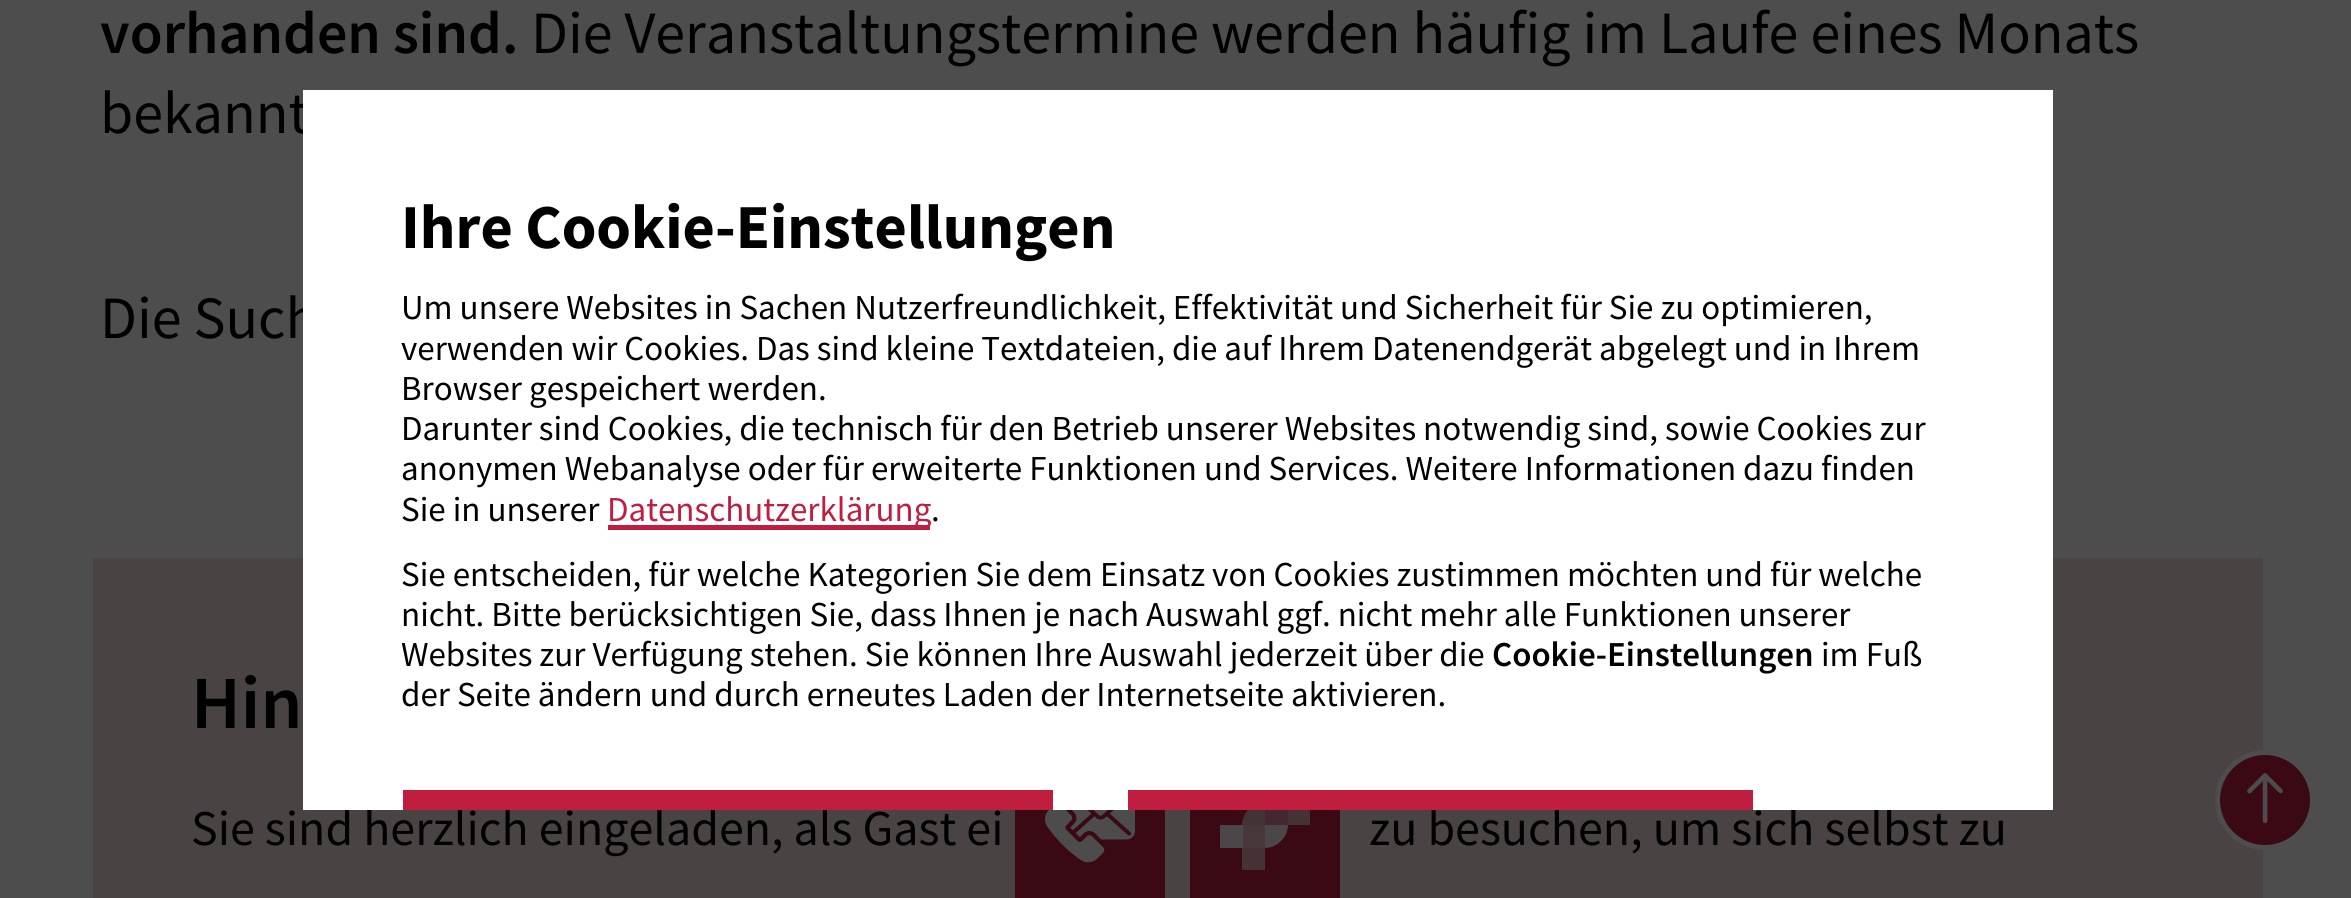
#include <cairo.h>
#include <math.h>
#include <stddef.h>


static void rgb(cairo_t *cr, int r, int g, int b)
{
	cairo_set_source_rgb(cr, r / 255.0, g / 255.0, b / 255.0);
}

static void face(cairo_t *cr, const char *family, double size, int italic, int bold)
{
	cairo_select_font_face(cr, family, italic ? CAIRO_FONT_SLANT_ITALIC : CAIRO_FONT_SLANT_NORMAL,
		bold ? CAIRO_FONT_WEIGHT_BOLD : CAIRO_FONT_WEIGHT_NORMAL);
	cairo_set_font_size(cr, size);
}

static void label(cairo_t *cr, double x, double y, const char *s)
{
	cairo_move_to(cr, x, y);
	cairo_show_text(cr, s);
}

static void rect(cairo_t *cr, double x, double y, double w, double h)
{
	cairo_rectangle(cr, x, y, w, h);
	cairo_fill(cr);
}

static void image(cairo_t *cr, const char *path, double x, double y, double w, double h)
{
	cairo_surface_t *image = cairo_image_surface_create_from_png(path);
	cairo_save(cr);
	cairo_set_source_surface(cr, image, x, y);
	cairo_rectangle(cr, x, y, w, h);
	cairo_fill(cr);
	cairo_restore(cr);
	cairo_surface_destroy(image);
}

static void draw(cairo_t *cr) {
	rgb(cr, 77, 77, 77);
	cairo_paint(cr);
	face(cr, "Source Sans Pro SemiBold", 60, 0, 0);
	rgb(cr, 0, 0, 0);
	label(cr, 100, 53, "vorhanden sind.");
	face(cr, "Source Sans Pro", 60, 0, 0);
	label(cr, 531, 53, "Die Veranstaltungstermine werden häufig im Laufe eines Monats");
	label(cr, 100, 133, "bekannt");
	label(cr, 100, 338, "Die Such");
	rgb(cr, 74, 67, 68);
	rect(cr, 93, 558, 2170, 340);
	face(cr, "Source Sans Pro SemiBold", 75, 0, 0);
	rgb(cr, 0, 0, 0);
	label(cr, 191, 728, "Hin");
	face(cr, "Source Sans Pro", 50, 0, 0);
	label(cr, 191, 845, "Sie sind herzlich eingeladen, als Gast ei");
	label(cr, 1369, 845, "zu besuchen, um sich selbst zu");
	rgb(cr, 58, 9, 19);
	rect(cr, 1015, 810, 150, 88);
	image(cr, "image0.png", 1045, 810, 90, 53);
	rect(cr, 1190, 810, 150, 88);
	rgb(cr, 69, 50, 53);
	cairo_new_path(cr);
	cairo_move_to(cr, 1265, 802);
	cairo_curve_to(cr, 1253, 802, 1242, 813, 1242, 825);
	cairo_line_to(cr, 1242, 870);
	cairo_line_to(cr, 1265, 870);
	cairo_line_to(cr, 1265, 825);
	cairo_line_to(cr, 1310, 825);
	cairo_line_to(cr, 1310, 802);
	cairo_close_path(cr);
	cairo_fill(cr);
	cairo_set_source_rgba(cr, 0.302, 0.302, 0.302, 0.9);
	cairo_new_path(cr);
	cairo_move_to(cr, 1265, 780);
	cairo_line_to(cr, 1265, 825);
	cairo_line_to(cr, 1220, 825);
	cairo_line_to(cr, 1220, 848);
	cairo_line_to(cr, 1265, 848);
	cairo_curve_to(cr, 1277, 848, 1288, 837, 1288, 825);
	cairo_line_to(cr, 1288, 780);
	cairo_close_path(cr);
	cairo_fill(cr);
	rgb(cr, 67, 41, 47);
	rect(cr, 1265, 810, 23, 15);
	rgb(cr, 71, 54, 58);
	rect(cr, 1243, 825, 22, 23);
	rgb(cr, 255, 255, 255);
	rect(cr, 303, 90, 1750, 720);
	face(cr, "Source Sans Pro", 62.5, 0, 1);
	rgb(cr, 0, 0, 0);
	label(cr, 401, 248, "Ihre Cookie-Einstellungen");
	face(cr, "Source Sans Pro", 35, 0, 0);
	label(cr, 401, 319, "Um unsere Websites in Sachen Nutzerfreundlichkeit, Effektivität und Sicherheit für Sie zu optimieren,");
	label(cr, 401, 360, "verwenden wir Cookies. Das sind kleine Textdateien, die auf Ihrem Datenendgerät abgelegt und in Ihrem");
	label(cr, 401, 400, "Browser gespeichert werden.");
	label(cr, 401, 440, "Darunter sind Cookies, die technisch für den Betrieb unserer Websites notwendig sind, sowie Cookies zur");
	label(cr, 401, 480, "anonymen Webanalyse oder für erweiterte Funktionen und Services. Weitere Informationen dazu finden");
	label(cr, 401, 521, "Sie in unserer");
	rgb(cr, 193, 29, 63);
	rect(cr, 608, 525, 322, 5);
	label(cr, 607, 521, "Datenschutzerklärung");
	rgb(cr, 0, 0, 0);
	label(cr, 931, 521, ".");
	label(cr, 401, 586, "Sie entscheiden, für welche Kategorien Sie dem Einsatz von Cookies zustimmen möchten und für welche");
	label(cr, 401, 626, "nicht. Bitte berücksichtigen Sie, dass Ihnen je nach Auswahl ggf. nicht mehr alle Funktionen unserer");
	label(cr, 401, 666, "Websites zur Verfügung stehen. Sie können Ihre Auswahl jederzeit über die");
	face(cr, "Source Sans Pro SemiBold", 35, 0, 0);
	label(cr, 1492, 666, "Cookie-Einstellungen");
	face(cr, "Source Sans Pro", 35, 0, 0);
	label(cr, 1821, 666, "im Fuß");
	label(cr, 401, 706, "der Seite ändern und durch erneutes Laden der Internetseite aktivieren.");
	rgb(cr, 193, 29, 63);
	rect(cr, 403, 790, 650, 20);
	rect(cr, 1128, 790, 625, 20);
	rgb(cr, 58, 9, 19);
	cairo_new_path(cr);
	cairo_arc(cr, 2265, 800, 47.5, 0, 2 * M_PI);
	cairo_fill_preserve(cr);
	rgb(cr, 77, 77, 77);
	cairo_set_line_width(cr, 5);
	cairo_stroke(cr);
	image(cr, "image1.png", 2247, 773, 36, 51);
}

int main(void) {
	cairo_surface_t *surface = cairo_image_surface_create(CAIRO_FORMAT_RGB24, 2351, 898);
	cairo_t *cr = cairo_create(surface);
	cairo_font_options_t *options = cairo_font_options_create();
	cairo_font_options_set_hint_metrics(options, CAIRO_HINT_METRICS_OFF);
	cairo_font_options_set_hint_style(options, CAIRO_HINT_STYLE_NONE);
	cairo_set_font_options(cr, options);
	cairo_set_miter_limit(cr, 4);
	draw(cr);
	cairo_surface_write_to_png(surface, "render.png");
	cairo_font_options_destroy(options);
	cairo_destroy(cr);
	cairo_surface_destroy(surface);
	return 0;
}
